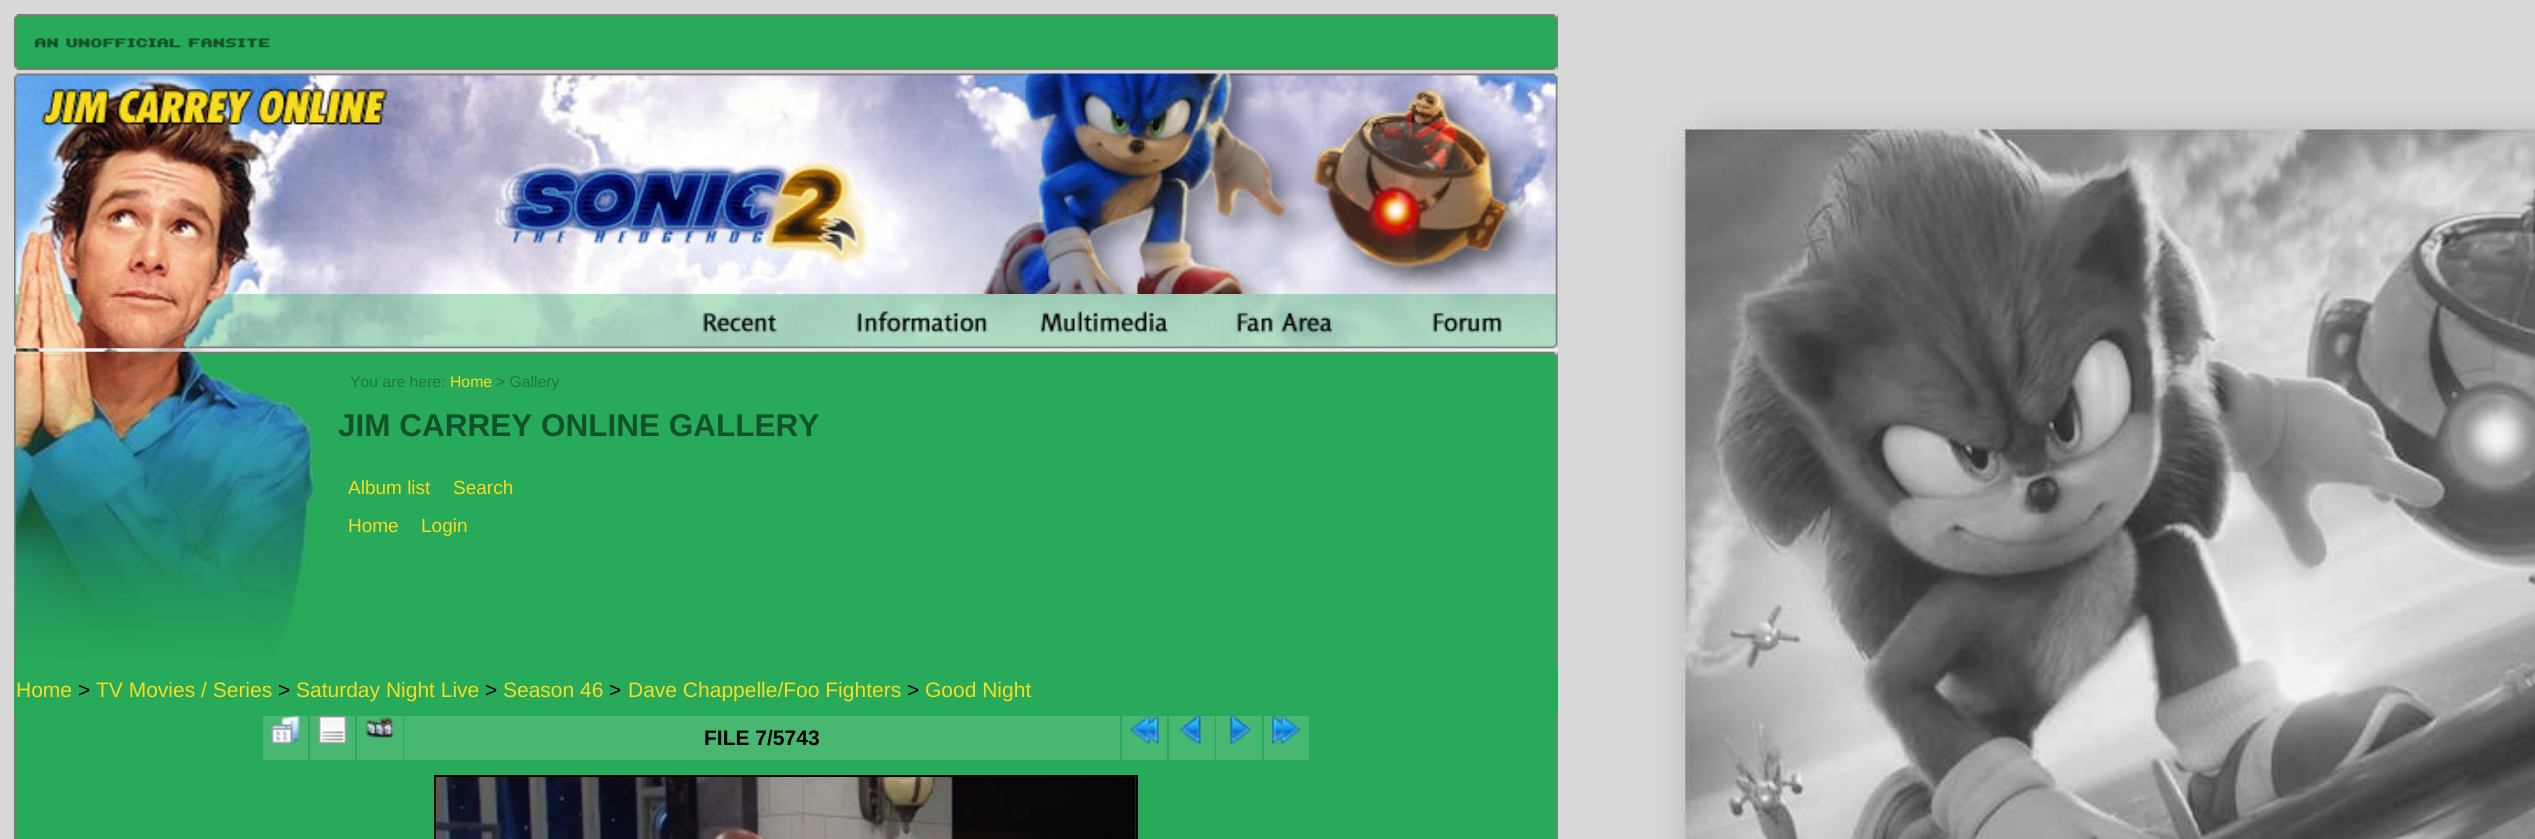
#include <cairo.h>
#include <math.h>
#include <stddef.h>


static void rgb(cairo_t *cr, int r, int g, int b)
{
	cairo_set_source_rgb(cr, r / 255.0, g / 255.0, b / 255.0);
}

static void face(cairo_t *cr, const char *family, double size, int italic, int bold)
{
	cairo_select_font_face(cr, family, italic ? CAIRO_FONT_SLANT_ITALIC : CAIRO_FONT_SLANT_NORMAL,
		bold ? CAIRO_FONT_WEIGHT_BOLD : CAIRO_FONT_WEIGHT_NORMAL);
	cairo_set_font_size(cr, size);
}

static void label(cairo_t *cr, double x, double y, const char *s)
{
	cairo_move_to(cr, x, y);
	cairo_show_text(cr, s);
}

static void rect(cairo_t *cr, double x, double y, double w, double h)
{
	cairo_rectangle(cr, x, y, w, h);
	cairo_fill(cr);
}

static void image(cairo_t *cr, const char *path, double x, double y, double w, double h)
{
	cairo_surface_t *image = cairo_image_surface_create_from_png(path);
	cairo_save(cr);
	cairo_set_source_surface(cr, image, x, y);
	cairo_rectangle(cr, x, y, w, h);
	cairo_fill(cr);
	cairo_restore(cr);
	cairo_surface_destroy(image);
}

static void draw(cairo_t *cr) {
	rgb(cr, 255, 255, 255);
	cairo_paint(cr);
	image(cr, "image0.png", 0, 0, 2535, 839);
	rgb(cr, 39, 170, 89);
	rect(cr, 15, 14, 1543, 56);
	image(cr, "image1.png", 14, 14, 1544, 56);
	image(cr, "image2.png", 14, 14, 1544, 4);
	image(cr, "image3.png", 14, 14, 1544, 4);
	image(cr, "image4.png", 35, 38, 235, 10);
	image(cr, "image5.png", 14, 66, 1544, 4);
	image(cr, "image6.png", 14, 66, 1544, 4);
	image(cr, "image7.png", 14, 73, 1544, 221);
	rect(cr, 15, 352, 1543, 487);
	image(cr, "image15.png", 14, 351, 1544, 488);
	image(cr, "image16.png", 14, 351, 1544, 5);
	image(cr, "image14.png", 14, 348, 1544, 4);
	image(cr, "image8.png", 14, 294, 685, 55);
	image(cr, "image9.png", 698, 294, 155, 55);
	image(cr, "image10.png", 852, 294, 184, 55);
	image(cr, "image11.png", 1036, 294, 196, 55);
	image(cr, "image12.png", 1232, 294, 196, 55);
	image(cr, "image13.png", 1428, 294, 130, 55);
	image(cr, "image17.png", 14, 351, 1544, 5);
	image(cr, "image18.png", 15, 355, 299, 312);
	face(cr, "Liberation Sans", 15.75, 0, 0);
	rgb(cr, 27, 120, 63);
	label(cr, 350, 387, "You are here:");
	rgb(cr, 248, 220, 32);
	label(cr, 450, 387, "Home");
	rgb(cr, 27, 120, 63);
	label(cr, 496, 387, "> Gallery");
	face(cr, "Liberation Sans", 31.5, 0, 1);
	rgb(cr, 18, 82, 43);
	label(cr, 338, 436, "JIM CARREY ONLINE GALLERY");
	face(cr, "Liberation Sans", 19, 0, 0);
	rgb(cr, 248, 220, 32);
	label(cr, 348, 494, "Album list");
	label(cr, 453, 494, "Search");
	label(cr, 348, 532, "Home");
	label(cr, 421, 532, "Login");
	rgb(cr, 39, 170, 89);
	rect(cr, 14, 667, 1544, 47);
	face(cr, "Liberation Sans", 21, 0, 0);
	rgb(cr, 248, 220, 32);
	label(cr, 16, 697, "Home");
	rgb(cr, 0, 0, 0);
	label(cr, 78, 697, ">");
	rgb(cr, 248, 220, 32);
	label(cr, 96, 697, "TV Movies / Series");
	rgb(cr, 0, 0, 0);
	label(cr, 278, 697, ">");
	rgb(cr, 248, 220, 32);
	label(cr, 296, 697, "Saturday Night Live");
	rgb(cr, 0, 0, 0);
	label(cr, 485, 697, ">");
	rgb(cr, 248, 220, 32);
	label(cr, 503, 697, "Season 46");
	rgb(cr, 0, 0, 0);
	label(cr, 609, 697, ">");
	rgb(cr, 248, 220, 32);
	label(cr, 628, 697, "Dave Chappelle/Foo Fighters");
	rgb(cr, 0, 0, 0);
	label(cr, 907, 697, ">");
	rgb(cr, 248, 220, 32);
	label(cr, 925, 697, "Good Night");
	rgb(cr, 71, 183, 114);
	rect(cr, 263, 716, 45, 44);
	image(cr, "image19.png", 271, 715, 29, 29);
	rect(cr, 310, 716, 45, 44);
	image(cr, "image20.png", 318, 715, 29, 29);
	rect(cr, 357, 716, 46, 44);
	image(cr, "image21.png", 365, 717, 29, 22);
	rect(cr, 404, 716, 716, 44);
	face(cr, "Liberation Sans", 21, 0, 1);
	rgb(cr, 0, 0, 0);
	label(cr, 704, 745, "FILE 7/5743");
	rgb(cr, 71, 183, 114);
	rect(cr, 1122, 716, 45, 44);
	image(cr, "image22.png", 1130, 715, 29, 29);
	rect(cr, 1169, 716, 46, 44);
	image(cr, "image23.png", 1179, 715, 22, 29);
	rect(cr, 1216, 716, 46, 44);
	image(cr, "image24.png", 1229, 715, 23, 29);
	rect(cr, 1264, 716, 45, 44);
	image(cr, "image25.png", 1272, 715, 29, 29);
	cairo_rectangle(cr, 435, 776, 702, 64);
	rgb(cr, 0, 0, 0);
	cairo_stroke(cr);
	image(cr, "image26.png", 435, 777, 701, 62);
}

int main(void) {
	cairo_surface_t *surface = cairo_image_surface_create(CAIRO_FORMAT_RGB24, 2535, 839);
	cairo_t *cr = cairo_create(surface);
	cairo_font_options_t *options = cairo_font_options_create();
	cairo_font_options_set_hint_metrics(options, CAIRO_HINT_METRICS_OFF);
	cairo_font_options_set_hint_style(options, CAIRO_HINT_STYLE_NONE);
	cairo_set_font_options(cr, options);
	cairo_set_miter_limit(cr, 4);
	draw(cr);
	cairo_surface_write_to_png(surface, "render.png");
	cairo_font_options_destroy(options);
	cairo_destroy(cr);
	cairo_surface_destroy(surface);
	return 0;
}
